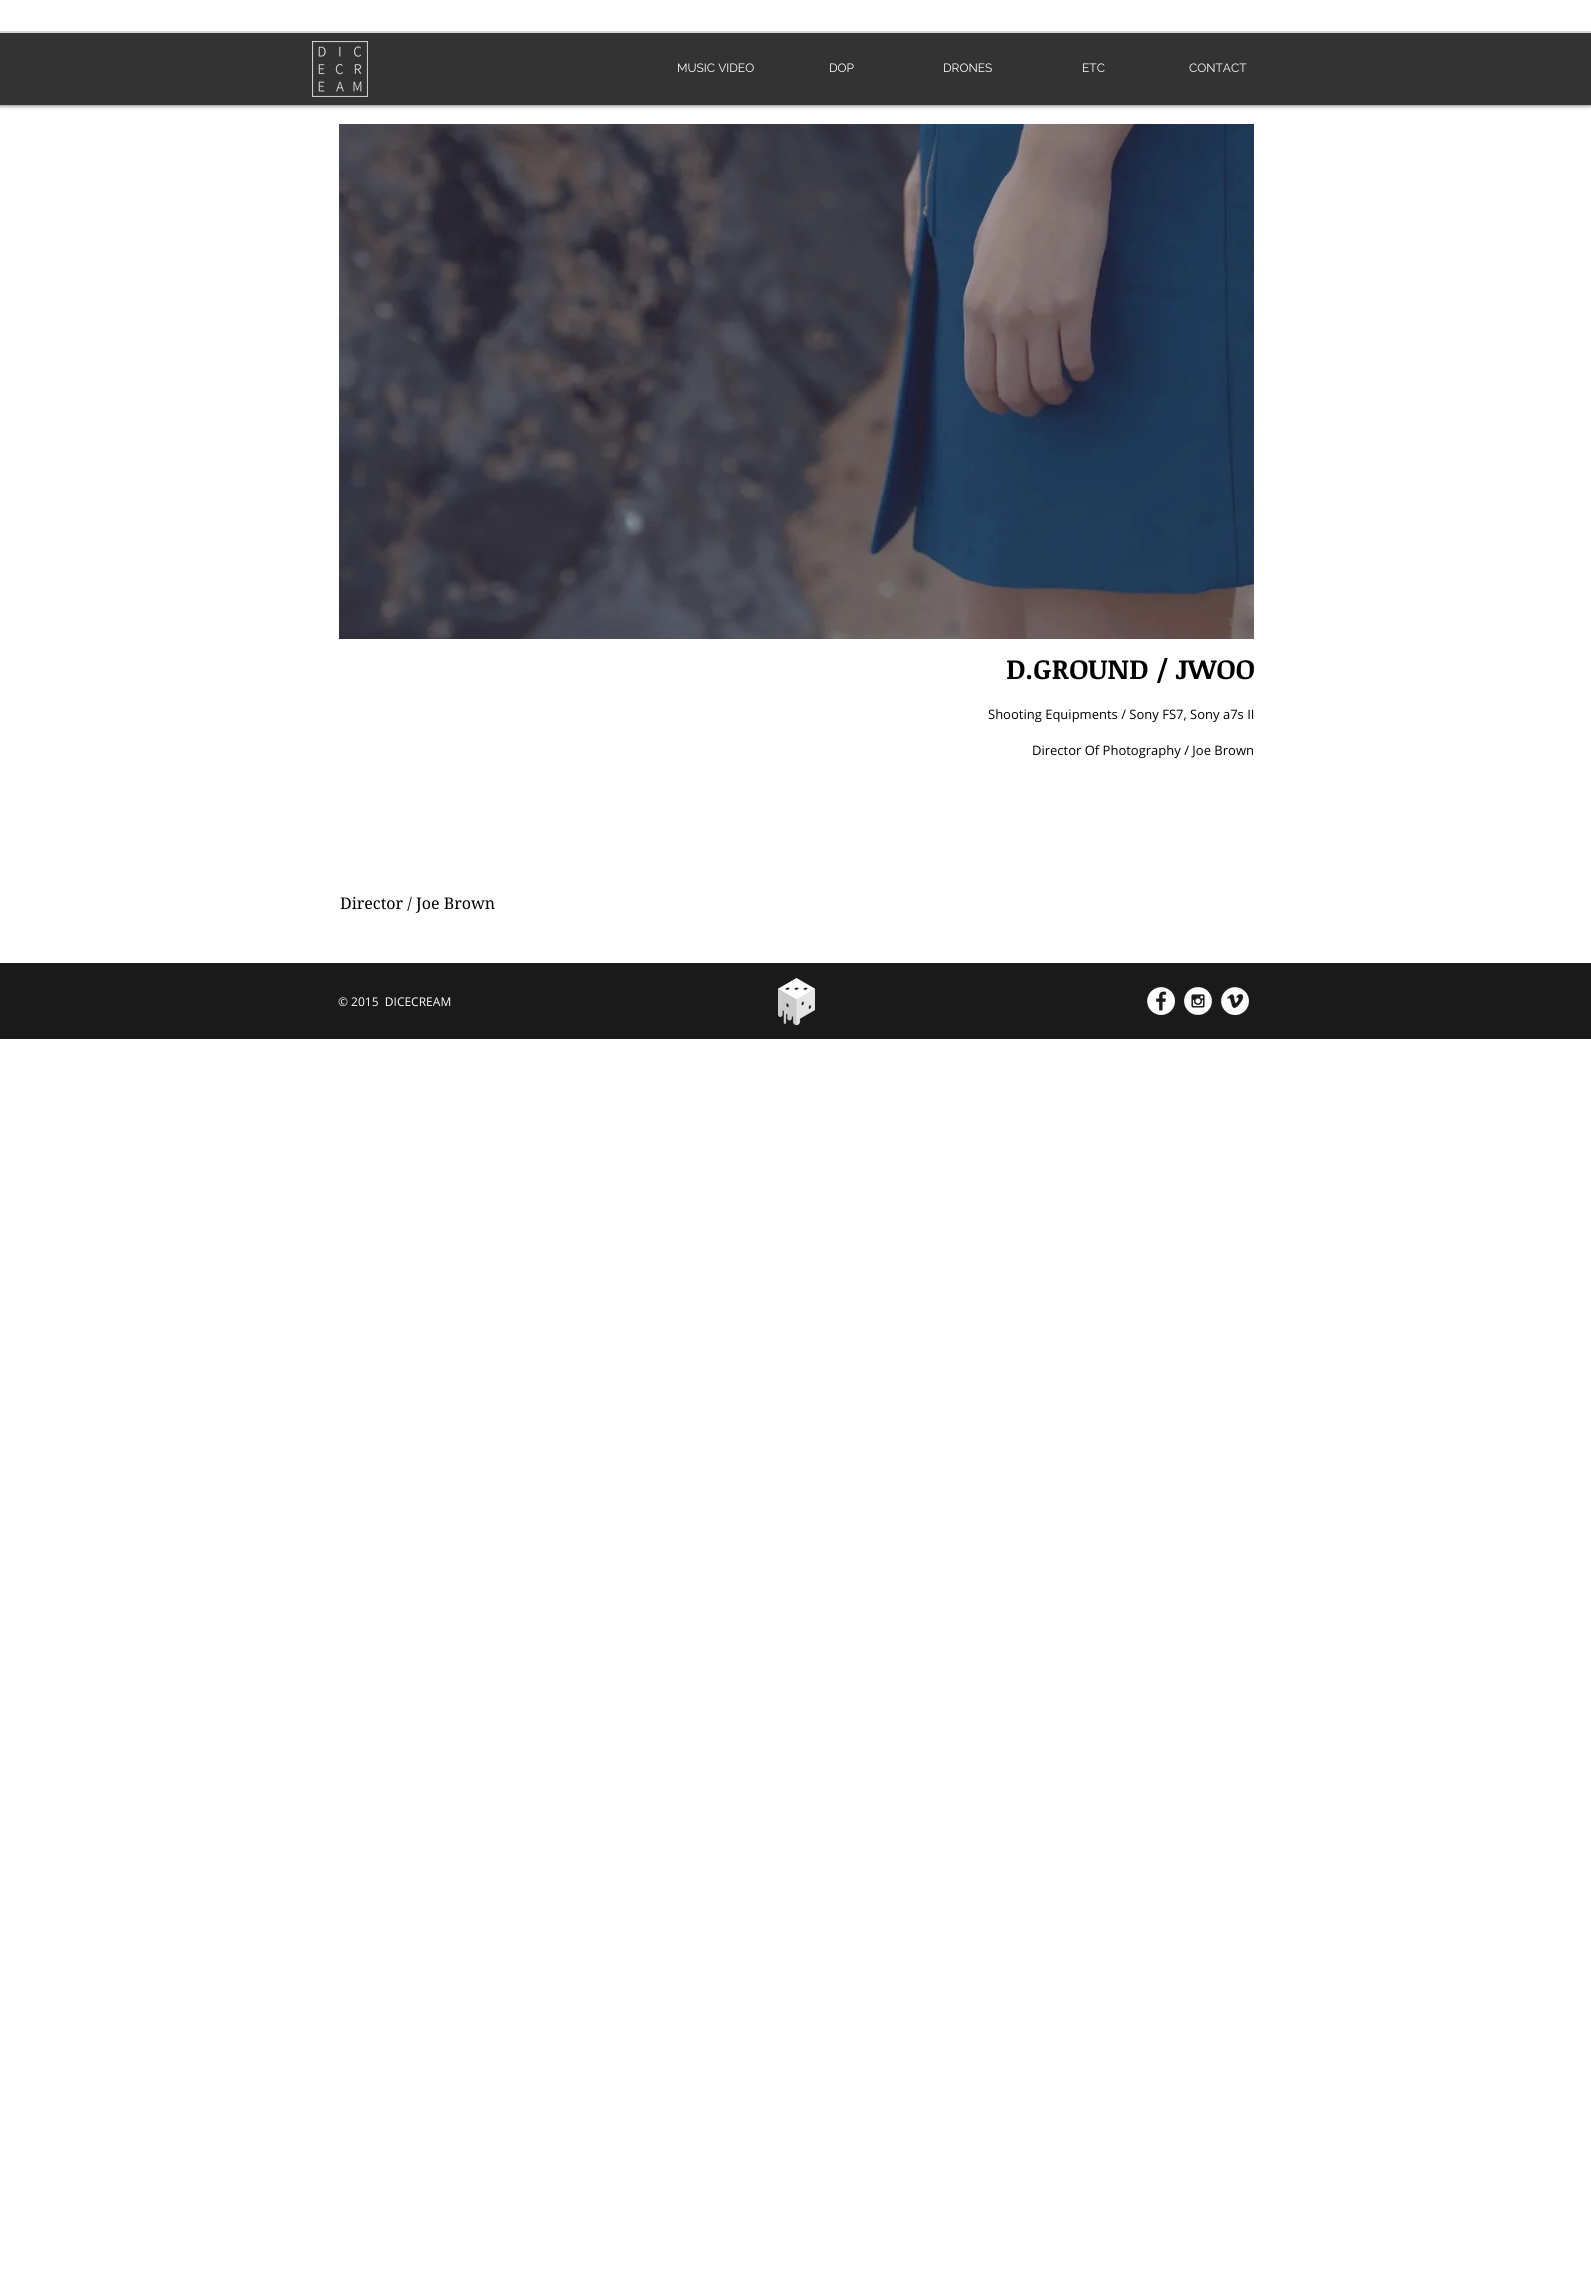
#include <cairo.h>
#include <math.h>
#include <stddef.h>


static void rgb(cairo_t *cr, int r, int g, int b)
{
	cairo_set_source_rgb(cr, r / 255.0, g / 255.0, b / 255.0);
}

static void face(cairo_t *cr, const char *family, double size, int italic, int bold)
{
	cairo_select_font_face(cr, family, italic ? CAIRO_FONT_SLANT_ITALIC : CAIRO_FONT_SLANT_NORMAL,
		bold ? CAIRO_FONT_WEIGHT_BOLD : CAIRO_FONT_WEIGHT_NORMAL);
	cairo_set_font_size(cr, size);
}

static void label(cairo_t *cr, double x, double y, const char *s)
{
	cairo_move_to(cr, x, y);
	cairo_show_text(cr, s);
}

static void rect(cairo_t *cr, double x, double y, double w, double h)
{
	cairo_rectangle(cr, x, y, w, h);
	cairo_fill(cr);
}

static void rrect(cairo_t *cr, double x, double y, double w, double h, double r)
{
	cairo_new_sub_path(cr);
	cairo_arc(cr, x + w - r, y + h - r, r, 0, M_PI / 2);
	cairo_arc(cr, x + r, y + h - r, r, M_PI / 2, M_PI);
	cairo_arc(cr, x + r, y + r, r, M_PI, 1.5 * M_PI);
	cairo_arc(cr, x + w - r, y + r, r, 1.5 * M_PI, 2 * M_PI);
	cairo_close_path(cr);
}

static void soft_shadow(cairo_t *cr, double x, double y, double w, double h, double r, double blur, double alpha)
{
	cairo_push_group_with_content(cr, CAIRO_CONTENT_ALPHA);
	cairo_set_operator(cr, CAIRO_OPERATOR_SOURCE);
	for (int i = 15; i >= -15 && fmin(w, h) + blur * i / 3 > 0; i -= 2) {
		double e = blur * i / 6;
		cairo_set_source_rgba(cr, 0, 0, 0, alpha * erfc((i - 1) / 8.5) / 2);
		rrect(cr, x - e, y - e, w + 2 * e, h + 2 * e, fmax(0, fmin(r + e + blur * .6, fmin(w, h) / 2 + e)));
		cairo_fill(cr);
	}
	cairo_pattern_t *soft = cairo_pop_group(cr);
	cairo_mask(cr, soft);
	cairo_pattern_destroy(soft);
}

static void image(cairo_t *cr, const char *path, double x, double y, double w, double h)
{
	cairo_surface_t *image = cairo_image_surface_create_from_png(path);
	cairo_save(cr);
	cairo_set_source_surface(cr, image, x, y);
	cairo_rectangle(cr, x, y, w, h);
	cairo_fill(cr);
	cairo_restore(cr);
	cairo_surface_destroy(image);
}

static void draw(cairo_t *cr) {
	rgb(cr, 255, 255, 255);
	cairo_paint(cr);
	cairo_save(cr);
	cairo_rectangle(cr, 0, 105, 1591, 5);
	cairo_clip(cr);
	rgb(cr, 0, 0, 0);
	soft_shadow(cr, 0, 0, 1591, 105, 0, 2.5, 0.7);
	cairo_restore(cr);
	rgb(cr, 51, 51, 51);
	rect(cr, 0, 33, 1591, 72);
	rgb(cr, 214, 214, 214);
	rect(cr, 0, 31, 1591, 2);
	image(cr, "image0.png", 312, 41, 56, 56);
	face(cr, "Raleway", 12, 0, 0);
	rgb(cr, 255, 255, 255);
	label(cr, 677, 72, "MUSIC VIDEO");
	label(cr, 829, 72, "DOP");
	label(cr, 943, 72, "DRONES");
	label(cr, 1082, 72, "ETC");
	label(cr, 1189, 72, "CONTACT");
	image(cr, "image1.png", 339, 124, 915, 515);
	face(cr, "Liberation Sans", 12, 0, 0);
	rgb(cr, 108, 95, 93);
	label(cr, 1227, 626, "1");
	face(cr, "Noticia Text", 28, 0, 1);
	rgb(cr, 0, 0, 0);
	label(cr, 1006, 679, "D.GROUND / JWOO");
	face(cr, "Open Sans", 13, 0, 0);
	label(cr, 988, 719, "Shooting Equipments / Sony FS7, Sony a7s II");
	label(cr, 1032, 755, "Director Of Photography / Joe Brown");
	face(cr, "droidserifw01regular", 16, 0, 0);
	label(cr, 340, 909, "Director / Joe Brown");
	rgb(cr, 26, 26, 26);
	rect(cr, 0, 963, 1591, 76);
	face(cr, "Open Sans", 12, 0, 0);
	rgb(cr, 255, 255, 255);
	label(cr, 338, 1006, "© 2015  DICECREAM");
	image(cr, "image2.png", 778, 978, 37, 47);
	image(cr, "image3.png", 1147, 987, 28, 28);
	image(cr, "image4.png", 1184, 987, 28, 28);
	image(cr, "image5.png", 1221, 987, 28, 28);
}

int main(void) {
	cairo_surface_t *surface = cairo_image_surface_create(CAIRO_FORMAT_RGB24, 1591, 2273);
	cairo_t *cr = cairo_create(surface);
	cairo_font_options_t *options = cairo_font_options_create();
	cairo_font_options_set_hint_metrics(options, CAIRO_HINT_METRICS_OFF);
	cairo_font_options_set_hint_style(options, CAIRO_HINT_STYLE_NONE);
	cairo_set_font_options(cr, options);
	cairo_set_miter_limit(cr, 4);
	draw(cr);
	cairo_surface_write_to_png(surface, "render.png");
	cairo_font_options_destroy(options);
	cairo_destroy(cr);
	cairo_surface_destroy(surface);
	return 0;
}
